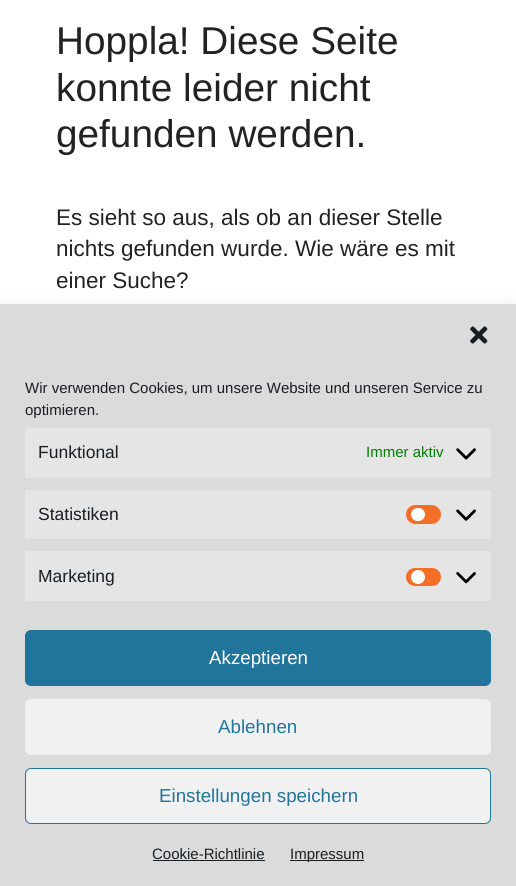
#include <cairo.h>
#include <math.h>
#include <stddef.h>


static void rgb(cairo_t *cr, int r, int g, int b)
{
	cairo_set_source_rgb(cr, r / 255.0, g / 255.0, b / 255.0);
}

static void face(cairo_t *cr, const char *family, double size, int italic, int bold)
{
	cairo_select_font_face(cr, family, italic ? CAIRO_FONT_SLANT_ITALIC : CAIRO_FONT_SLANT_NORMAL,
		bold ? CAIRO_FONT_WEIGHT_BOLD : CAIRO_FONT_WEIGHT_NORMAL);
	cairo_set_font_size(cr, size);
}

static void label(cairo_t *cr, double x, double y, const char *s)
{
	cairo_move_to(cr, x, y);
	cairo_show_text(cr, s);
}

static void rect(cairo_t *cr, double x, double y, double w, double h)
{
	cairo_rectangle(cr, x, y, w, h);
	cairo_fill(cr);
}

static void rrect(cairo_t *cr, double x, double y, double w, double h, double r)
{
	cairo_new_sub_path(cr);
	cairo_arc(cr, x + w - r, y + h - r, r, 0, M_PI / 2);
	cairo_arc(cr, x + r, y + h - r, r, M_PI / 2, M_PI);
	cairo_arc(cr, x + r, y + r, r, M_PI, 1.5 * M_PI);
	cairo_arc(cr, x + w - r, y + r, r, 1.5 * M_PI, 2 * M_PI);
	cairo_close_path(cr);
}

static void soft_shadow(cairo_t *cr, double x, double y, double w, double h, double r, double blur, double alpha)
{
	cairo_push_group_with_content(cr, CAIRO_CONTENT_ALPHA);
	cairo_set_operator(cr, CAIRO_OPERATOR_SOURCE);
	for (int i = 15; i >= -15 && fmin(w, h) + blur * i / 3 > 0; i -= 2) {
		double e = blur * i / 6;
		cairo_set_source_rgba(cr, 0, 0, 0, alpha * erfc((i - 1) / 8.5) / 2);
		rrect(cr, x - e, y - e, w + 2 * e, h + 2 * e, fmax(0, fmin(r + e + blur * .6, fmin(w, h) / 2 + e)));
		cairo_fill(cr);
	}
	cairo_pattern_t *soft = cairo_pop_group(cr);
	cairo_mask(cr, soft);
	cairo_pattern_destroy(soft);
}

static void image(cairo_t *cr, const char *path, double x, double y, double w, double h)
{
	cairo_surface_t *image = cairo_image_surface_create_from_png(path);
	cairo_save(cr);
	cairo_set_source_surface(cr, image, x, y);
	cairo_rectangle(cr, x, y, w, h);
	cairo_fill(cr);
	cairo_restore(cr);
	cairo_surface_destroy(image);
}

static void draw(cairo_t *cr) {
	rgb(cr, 255, 255, 255);
	cairo_paint(cr);
	face(cr, "Liberation Sans", 38.75, 0, 0);
	rgb(cr, 34, 34, 34);
	label(cr, 56, 54, "Hoppla! Diese Seite");
	label(cr, 56, 101, "konnte leider nicht");
	label(cr, 56, 147, "gefunden werden.");
	face(cr, "Liberation Sans", 22.5, 0, 0);
	label(cr, 56, 225, "Es sieht so aus, als ob an dieser Stelle");
	label(cr, 56, 256, "nichts gefunden wurde. Wie wäre es mit");
	label(cr, 56, 288, "einer Suche?");
	rgb(cr, 0, 0, 0);
	soft_shadow(cr, 0, 316, 516, 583, 0, 12.5, 0.19);
	rgb(cr, 219, 219, 219);
	rect(cr, 0, 304, 516, 582);
	image(cr, "image0.png", 470, 326, 18, 18);
	face(cr, "Liberation Sans", 15, 0, 0);
	rgb(cr, 25, 30, 35);
	label(cr, 25, 393, "Wir verwenden Cookies, um unsere Website und unseren Service zu");
	label(cr, 25, 415, "optimieren.");
	rgb(cr, 229, 229, 229);
	rect(cr, 25, 428, 466, 50);
	face(cr, "Liberation Sans", 17.5, 0, 0);
	rgb(cr, 25, 30, 35);
	label(cr, 38, 458, "Funktional");
	face(cr, "Liberation Sans", 15, 0, 0);
	rgb(cr, 0, 128, 0);
	label(cr, 366, 457, "Immer aktiv");
	image(cr, "image1.png", 456, 448, 20, 12);
	rgb(cr, 229, 229, 229);
	rect(cr, 25, 490, 466, 49);
	face(cr, "Liberation Sans", 17.5, 0, 0);
	rgb(cr, 25, 30, 35);
	label(cr, 38, 520, "Statistiken");
	rgb(cr, 245, 110, 40);
	rrect(cr, 406, 505, 35, 19, 9.5);
	cairo_fill(cr);
	rgb(cr, 255, 255, 255);
	rrect(cr, 411, 508, 14, 13, 6.5);
	cairo_fill(cr);
	image(cr, "image2.png", 456, 509, 20, 12);
	rgb(cr, 229, 229, 229);
	rect(cr, 25, 551, 466, 50);
	rgb(cr, 25, 30, 35);
	label(cr, 38, 582, "Marketing");
	rgb(cr, 245, 110, 40);
	rrect(cr, 406, 568, 35, 18, 9);
	cairo_fill(cr);
	rgb(cr, 255, 255, 255);
	cairo_arc(cr, 418, 577, 7, 0, 2 * M_PI);
	cairo_fill(cr);
	image(cr, "image3.png", 456, 572, 20, 12);
	rgb(cr, 33, 117, 155);
	rrect(cr, 25.5, 630.5, 465, 55, 5.5);
	cairo_fill_preserve(cr);
	cairo_set_line_width(cr, 1);
	cairo_stroke(cr);
	face(cr, "Liberation Sans", 18.75, 0, 0);
	rgb(cr, 255, 255, 255);
	label(cr, 209, 664, "Akzeptieren");
	rgb(cr, 241, 241, 241);
	rrect(cr, 25.5, 699.5, 465, 55, 5.5);
	cairo_fill_preserve(cr);
	cairo_stroke(cr);
	rgb(cr, 33, 117, 155);
	label(cr, 218, 733, "Ablehnen");
	rgb(cr, 241, 241, 241);
	rrect(cr, 25.5, 768.5, 465, 55, 5.5);
	cairo_fill_preserve(cr);
	rgb(cr, 33, 117, 155);
	cairo_stroke(cr);
	label(cr, 159, 802, "Einstellungen speichern");
	face(cr, "Liberation Sans", 15, 0, 0);
	rgb(cr, 25, 30, 35);
	label(cr, 152, 859, "Cookie-Richtlinie");
	rect(cr, 153, 860, 112, 1);
	rect(cr, 290, 860, 74, 1);
	label(cr, 290, 859, "Impressum");
}

int main(void) {
	cairo_surface_t *surface = cairo_image_surface_create(CAIRO_FORMAT_RGB24, 516, 886);
	cairo_t *cr = cairo_create(surface);
	cairo_font_options_t *options = cairo_font_options_create();
	cairo_font_options_set_hint_metrics(options, CAIRO_HINT_METRICS_OFF);
	cairo_font_options_set_hint_style(options, CAIRO_HINT_STYLE_NONE);
	cairo_set_font_options(cr, options);
	cairo_set_miter_limit(cr, 4);
	draw(cr);
	cairo_surface_write_to_png(surface, "render.png");
	cairo_font_options_destroy(options);
	cairo_destroy(cr);
	cairo_surface_destroy(surface);
	return 0;
}
